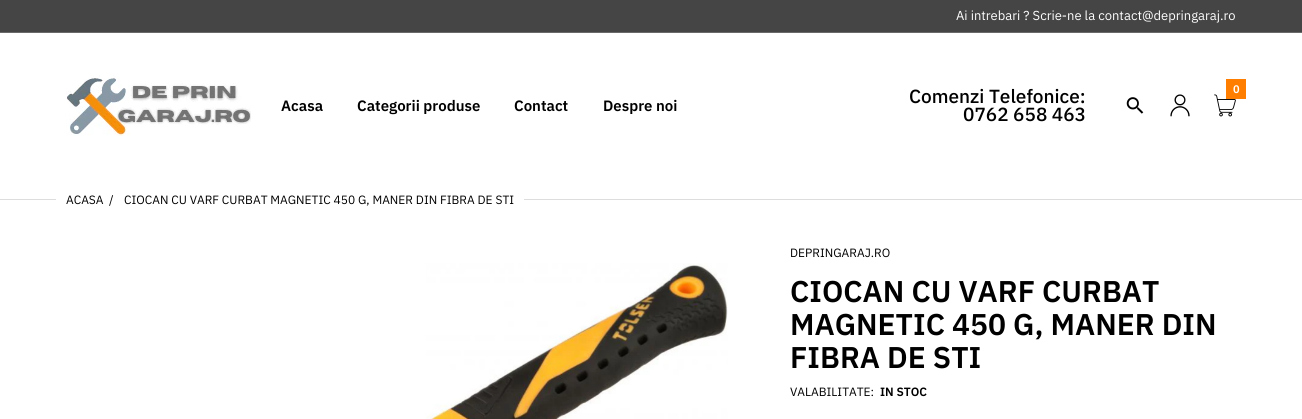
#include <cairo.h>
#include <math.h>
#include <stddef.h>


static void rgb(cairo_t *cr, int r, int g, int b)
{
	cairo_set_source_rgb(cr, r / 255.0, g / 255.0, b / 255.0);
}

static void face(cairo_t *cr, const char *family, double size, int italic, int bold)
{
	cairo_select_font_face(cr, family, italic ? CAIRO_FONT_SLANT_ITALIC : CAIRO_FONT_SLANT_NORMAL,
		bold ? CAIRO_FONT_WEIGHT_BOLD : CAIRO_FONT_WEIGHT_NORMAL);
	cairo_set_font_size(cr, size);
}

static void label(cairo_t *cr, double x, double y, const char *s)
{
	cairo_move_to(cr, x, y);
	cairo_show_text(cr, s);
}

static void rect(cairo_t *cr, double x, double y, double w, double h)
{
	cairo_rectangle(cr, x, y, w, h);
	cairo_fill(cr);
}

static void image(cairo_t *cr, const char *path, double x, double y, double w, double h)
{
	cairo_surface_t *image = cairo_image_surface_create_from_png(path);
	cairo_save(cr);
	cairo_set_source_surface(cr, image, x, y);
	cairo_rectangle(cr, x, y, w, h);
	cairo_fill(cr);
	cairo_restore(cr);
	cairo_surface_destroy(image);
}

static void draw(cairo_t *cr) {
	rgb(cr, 255, 255, 255);
	cairo_paint(cr);
	rgb(cr, 69, 69, 69);
	rect(cr, 0, 0, 1302, 32);
	rgb(cr, 106, 106, 106);
	rect(cr, 0, 32, 1302, 1);
	face(cr, "IBM Plex Sans", 13, 0, 0);
	rgb(cr, 255, 255, 255);
	label(cr, 956, 20, "Ai intrebari ? Scrie-ne la contact@depringaraj.ro");
	image(cr, "image0.png", 66, 75, 185, 61);
	face(cr, "IBM Plex Sans SemiBold", 15, 0, 0);
	rgb(cr, 0, 0, 0);
	label(cr, 281, 111, "Acasa");
	label(cr, 357, 111, "Categorii produse");
	label(cr, 514, 111, "Contact");
	label(cr, 603, 111, "Despre noi");
	face(cr, "IBM Plex Sans Medium", 19, 0, 0);
	label(cr, 909, 103, "Comenzi Telefonice:");
	label(cr, 963, 121, "0762 658 463");
	image(cr, "image1.png", 1214, 94, 22, 23);
	rgb(cr, 255, 126, 0);
	rect(cr, 1226, 79, 20, 20);
	face(cr, "IBM Plex Sans SemiBold", 11, 0, 0);
	rgb(cr, 255, 255, 255);
	label(cr, 1233, 93, "0");
	image(cr, "image2.png", 1126, 97, 18, 17);
	image(cr, "image3.png", 1170, 94, 20, 23);
	rgb(cr, 221, 221, 221);
	rect(cr, 0, 199, 56, 1);
	face(cr, "IBM Plex Sans", 12, 0, 0);
	rgb(cr, 0, 0, 0);
	label(cr, 66, 204, "ACASA");
	label(cr, 109, 204, "/");
	label(cr, 124, 204, "CIOCAN CU VARF CURBAT MAGNETIC 450 G, MANER DIN FIBRA DE STI");
	rgb(cr, 221, 221, 221);
	rect(cr, 524, 199, 778, 1);
	image(cr, "image4.png", 426, 263, 302, 156);
	rgb(cr, 0, 0, 0);
	label(cr, 790, 257, "DEPRINGARAJ.RO");
	face(cr, "IBM Plex Sans SemiBold", 30, 0, 0);
	label(cr, 790, 302, "CIOCAN CU VARF CURBAT");
	label(cr, 790, 335, "MAGNETIC 450 G, MANER DIN");
	label(cr, 790, 368, "FIBRA DE STI");
	face(cr, "IBM Plex Sans", 12, 0, 0);
	label(cr, 790, 396, "VALABILITATE:");
	face(cr, "IBM Plex Sans SemiBold", 12, 0, 0);
	label(cr, 880, 396, "IN STOC");
}

int main(void) {
	cairo_surface_t *surface = cairo_image_surface_create(CAIRO_FORMAT_RGB24, 1302, 419);
	cairo_t *cr = cairo_create(surface);
	cairo_font_options_t *options = cairo_font_options_create();
	cairo_font_options_set_hint_metrics(options, CAIRO_HINT_METRICS_OFF);
	cairo_font_options_set_hint_style(options, CAIRO_HINT_STYLE_NONE);
	cairo_set_font_options(cr, options);
	cairo_set_miter_limit(cr, 4);
	draw(cr);
	cairo_surface_write_to_png(surface, "render.png");
	cairo_font_options_destroy(options);
	cairo_destroy(cr);
	cairo_surface_destroy(surface);
	return 0;
}
